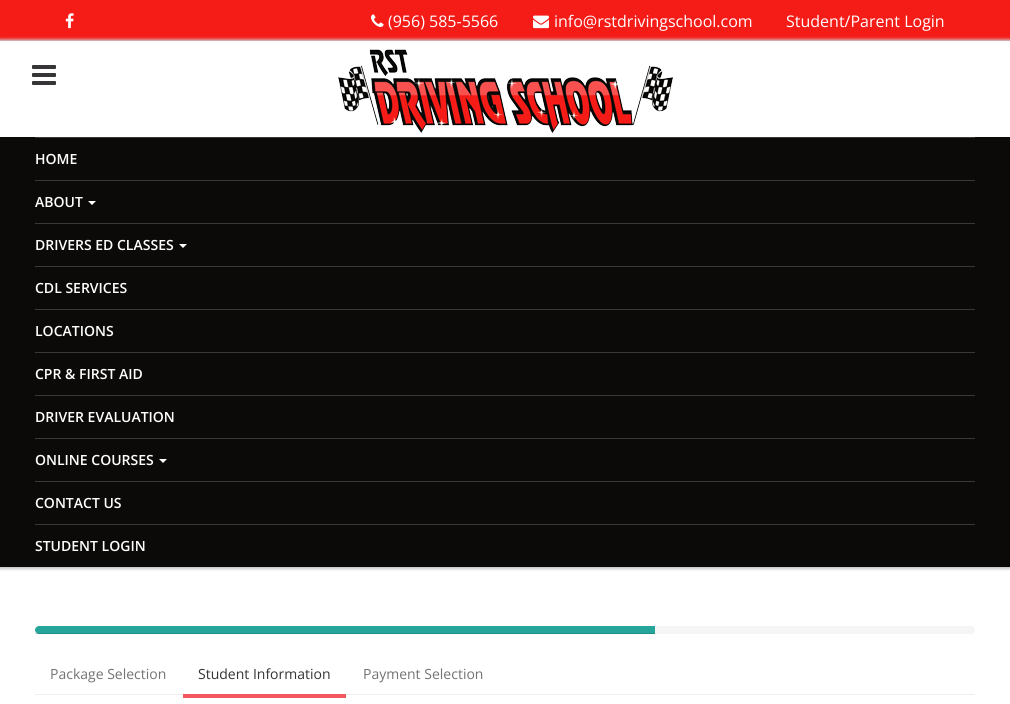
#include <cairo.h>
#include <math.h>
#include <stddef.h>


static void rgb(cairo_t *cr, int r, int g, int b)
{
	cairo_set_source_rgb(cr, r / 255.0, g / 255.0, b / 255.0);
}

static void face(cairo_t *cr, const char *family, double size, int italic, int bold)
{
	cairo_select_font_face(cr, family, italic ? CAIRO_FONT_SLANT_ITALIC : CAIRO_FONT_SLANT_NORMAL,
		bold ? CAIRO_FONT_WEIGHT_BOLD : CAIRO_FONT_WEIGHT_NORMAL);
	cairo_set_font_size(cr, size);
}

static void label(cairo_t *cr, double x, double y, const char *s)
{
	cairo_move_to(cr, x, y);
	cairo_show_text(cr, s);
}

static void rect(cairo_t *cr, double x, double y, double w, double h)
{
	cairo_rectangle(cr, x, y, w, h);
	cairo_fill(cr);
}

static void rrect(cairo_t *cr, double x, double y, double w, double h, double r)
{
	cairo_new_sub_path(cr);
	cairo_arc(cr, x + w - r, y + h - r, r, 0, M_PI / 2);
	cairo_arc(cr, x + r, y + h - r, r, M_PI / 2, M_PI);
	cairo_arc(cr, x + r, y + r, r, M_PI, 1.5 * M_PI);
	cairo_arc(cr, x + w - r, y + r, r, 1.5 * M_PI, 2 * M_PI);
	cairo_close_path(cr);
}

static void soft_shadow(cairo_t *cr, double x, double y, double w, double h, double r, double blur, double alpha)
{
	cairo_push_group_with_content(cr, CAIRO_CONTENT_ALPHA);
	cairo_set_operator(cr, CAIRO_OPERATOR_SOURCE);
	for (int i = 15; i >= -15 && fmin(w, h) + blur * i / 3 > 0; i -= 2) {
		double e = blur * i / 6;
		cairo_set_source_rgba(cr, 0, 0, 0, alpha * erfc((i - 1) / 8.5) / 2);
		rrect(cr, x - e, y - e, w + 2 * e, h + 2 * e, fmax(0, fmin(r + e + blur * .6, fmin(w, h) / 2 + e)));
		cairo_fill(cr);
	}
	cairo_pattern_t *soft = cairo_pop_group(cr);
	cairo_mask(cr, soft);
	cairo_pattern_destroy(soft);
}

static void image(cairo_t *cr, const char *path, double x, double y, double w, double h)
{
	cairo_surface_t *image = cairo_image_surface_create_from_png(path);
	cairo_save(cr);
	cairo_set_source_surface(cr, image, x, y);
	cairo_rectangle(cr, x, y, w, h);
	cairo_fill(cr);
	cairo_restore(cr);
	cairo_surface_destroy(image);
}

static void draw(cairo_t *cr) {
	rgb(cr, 255, 255, 255);
	cairo_paint(cr);
	rgb(cr, 0, 0, 0);
	soft_shadow(cr, 0, 1, 1010, 567, 0, 1, 0.18);
	soft_shadow(cr, 0, 1, 1010, 567, 0, 1.5, 0.1);
	rgb(cr, 245, 27, 23);
	rect(cr, 0, 0, 1010, 41);
	image(cr, "image0.png", 65, 13, 9, 16);
	image(cr, "image1.png", 371, 14, 13, 13);
	face(cr, "Open Sans", 16, 0, 0);
	rgb(cr, 255, 255, 255);
	label(cr, 388, 27, "(956) 585-5566");
	image(cr, "image2.png", 533, 15, 16, 14);
	label(cr, 554, 27, "info@rstdrivingschool.com");
	label(cr, 786, 27, "Student/Parent Login");
	rgb(cr, 204, 204, 204);
	soft_shadow(cr, 0, 41, 1010, 526, 0, 2, 1);
	soft_shadow(cr, 0, 41, 1010, 526, 0, 2, 1);
	soft_shadow(cr, 0, 41, 1010, 526, 0, 2, 1);
	rgb(cr, 255, 255, 255);
	rect(cr, 0, 41, 1010, 96);
	image(cr, "image3.png", 32, 65, 24, 20);
	image(cr, "image4.png", 338, 49, 335, 84);
	rgb(cr, 11, 10, 8);
	rect(cr, 0, 137, 1010, 430);
	rgb(cr, 56, 56, 56);
	rect(cr, 35, 137, 940, 1);
	face(cr, "Open Sans SemiBold", 14, 0, 0);
	rgb(cr, 255, 255, 255);
	label(cr, 35, 164, "HOME");
	rgb(cr, 56, 56, 56);
	rect(cr, 35, 180, 940, 1);
	rgb(cr, 255, 255, 255);
	label(cr, 35, 207, "ABOUT");
	cairo_new_path(cr);
	cairo_move_to(cr, 88, 201);
	cairo_line_to(cr, 96, 201);
	cairo_line_to(cr, 92, 205);
	cairo_close_path(cr);
	cairo_fill(cr);
	rgb(cr, 56, 56, 56);
	rect(cr, 35, 223, 940, 1);
	rgb(cr, 255, 255, 255);
	label(cr, 35, 250, "DRIVERS ED CLASSES");
	cairo_new_path(cr);
	cairo_move_to(cr, 179, 244);
	cairo_line_to(cr, 187, 244);
	cairo_line_to(cr, 183, 248);
	cairo_close_path(cr);
	cairo_fill(cr);
	rgb(cr, 56, 56, 56);
	rect(cr, 35, 266, 940, 1);
	rgb(cr, 255, 255, 255);
	label(cr, 35, 293, "CDL SERVICES");
	rgb(cr, 56, 56, 56);
	rect(cr, 35, 309, 940, 1);
	rgb(cr, 255, 255, 255);
	label(cr, 35, 336, "LOCATIONS");
	rgb(cr, 56, 56, 56);
	rect(cr, 35, 352, 940, 1);
	rgb(cr, 255, 255, 255);
	label(cr, 35, 379, "CPR & FIRST AID");
	rgb(cr, 56, 56, 56);
	rect(cr, 35, 395, 940, 1);
	rgb(cr, 255, 255, 255);
	label(cr, 35, 422, "DRIVER EVALUATION");
	rgb(cr, 56, 56, 56);
	rect(cr, 35, 438, 940, 1);
	rgb(cr, 255, 255, 255);
	label(cr, 35, 465, "ONLINE COURSES");
	cairo_new_path(cr);
	cairo_move_to(cr, 159, 459);
	cairo_line_to(cr, 167, 459);
	cairo_line_to(cr, 163, 463);
	cairo_close_path(cr);
	cairo_fill(cr);
	rgb(cr, 56, 56, 56);
	rect(cr, 35, 481, 940, 1);
	rgb(cr, 255, 255, 255);
	label(cr, 35, 508, "CONTACT US");
	rgb(cr, 56, 56, 56);
	rect(cr, 35, 524, 940, 1);
	rgb(cr, 255, 255, 255);
	label(cr, 35, 551, "STUDENT LOGIN");
	rgb(cr, 245, 245, 245);
	rrect(cr, 35, 626, 940, 8, 4);
	cairo_fill(cr);
	rgb(cr, 38, 166, 154);
	cairo_new_path(cr);
	cairo_move_to(cr, 39, 626);
	cairo_line_to(cr, 655, 626);
	cairo_line_to(cr, 655, 634);
	cairo_line_to(cr, 39, 634);
	cairo_curve_to(cr, 37, 634, 35, 632, 35, 630);
	cairo_curve_to(cr, 35, 628, 37, 626, 39, 626);
	cairo_close_path(cr);
	cairo_fill(cr);
	cairo_set_source_rgba(cr, 0, 0, 0, 0.15);
	rect(cr, 35, 633, 620, 1);
	face(cr, "Open Sans", 14, 0, 0);
	rgb(cr, 115, 115, 115);
	label(cr, 50, 679, "Package Selection");
	rgb(cr, 238, 238, 238);
	rect(cr, 35, 694, 940, 1);
	rgb(cr, 243, 86, 93);
	rect(cr, 183, 694, 163, 4);
	rgb(cr, 51, 51, 51);
	label(cr, 198, 679, "Student Information");
	rgb(cr, 115, 115, 115);
	label(cr, 363, 679, "Payment Selection");
}

int main(void) {
	cairo_surface_t *surface = cairo_image_surface_create(CAIRO_FORMAT_RGB24, 1010, 704);
	cairo_t *cr = cairo_create(surface);
	cairo_font_options_t *options = cairo_font_options_create();
	cairo_font_options_set_hint_metrics(options, CAIRO_HINT_METRICS_OFF);
	cairo_font_options_set_hint_style(options, CAIRO_HINT_STYLE_NONE);
	cairo_set_font_options(cr, options);
	cairo_set_miter_limit(cr, 4);
	draw(cr);
	cairo_surface_write_to_png(surface, "render.png");
	cairo_font_options_destroy(options);
	cairo_destroy(cr);
	cairo_surface_destroy(surface);
	return 0;
}
